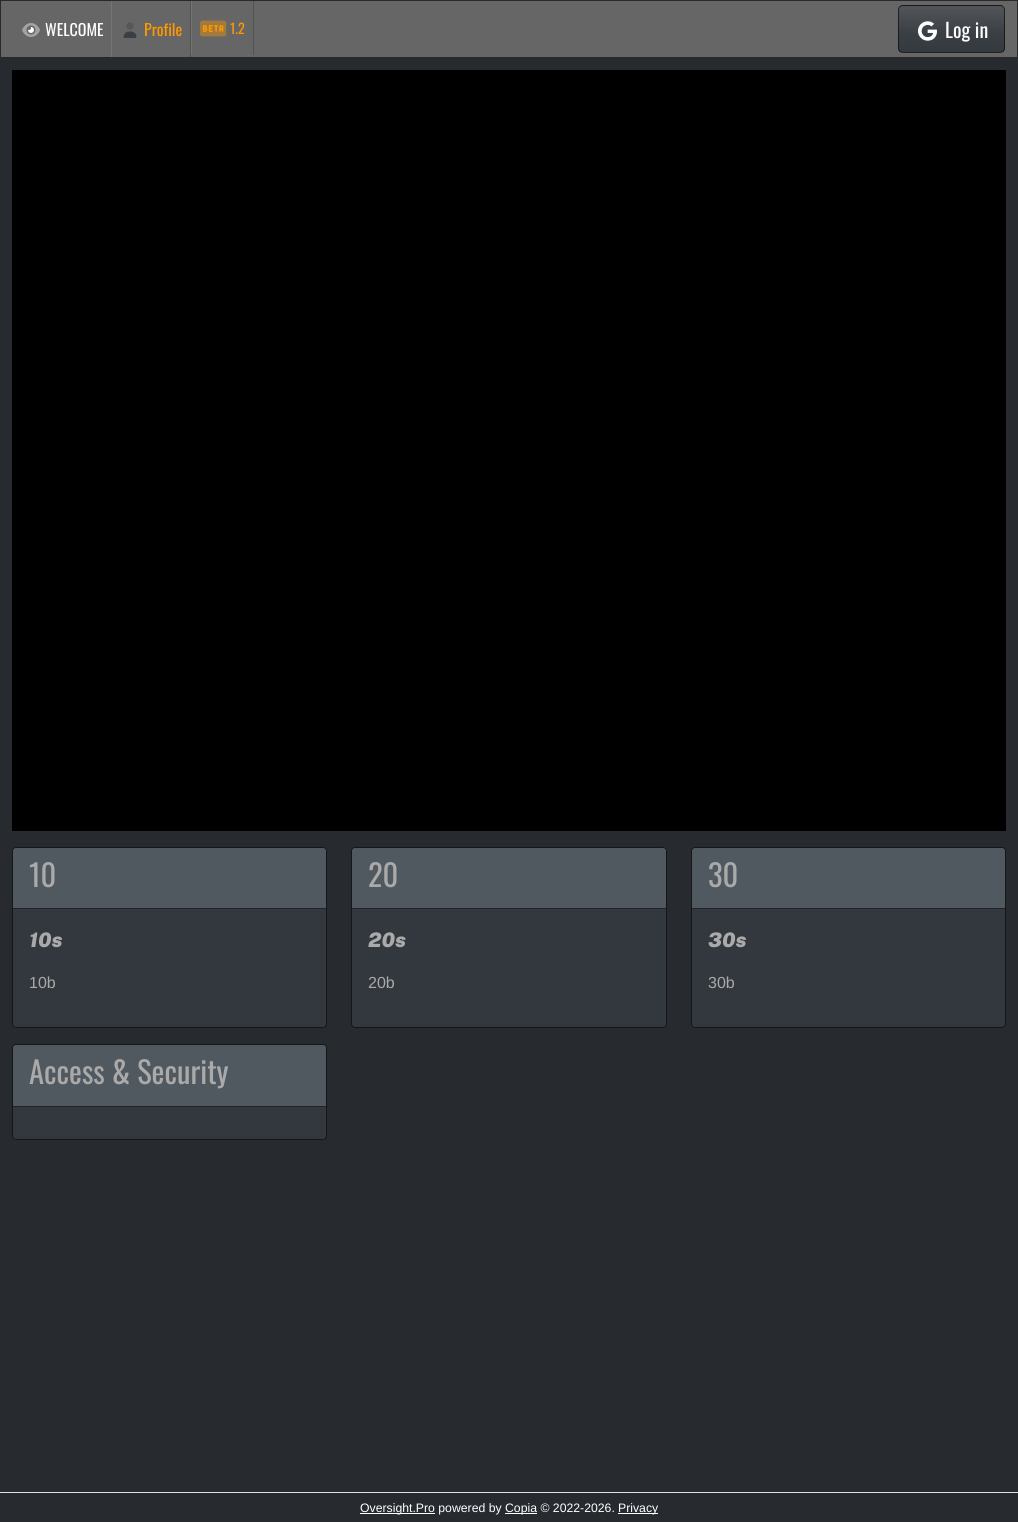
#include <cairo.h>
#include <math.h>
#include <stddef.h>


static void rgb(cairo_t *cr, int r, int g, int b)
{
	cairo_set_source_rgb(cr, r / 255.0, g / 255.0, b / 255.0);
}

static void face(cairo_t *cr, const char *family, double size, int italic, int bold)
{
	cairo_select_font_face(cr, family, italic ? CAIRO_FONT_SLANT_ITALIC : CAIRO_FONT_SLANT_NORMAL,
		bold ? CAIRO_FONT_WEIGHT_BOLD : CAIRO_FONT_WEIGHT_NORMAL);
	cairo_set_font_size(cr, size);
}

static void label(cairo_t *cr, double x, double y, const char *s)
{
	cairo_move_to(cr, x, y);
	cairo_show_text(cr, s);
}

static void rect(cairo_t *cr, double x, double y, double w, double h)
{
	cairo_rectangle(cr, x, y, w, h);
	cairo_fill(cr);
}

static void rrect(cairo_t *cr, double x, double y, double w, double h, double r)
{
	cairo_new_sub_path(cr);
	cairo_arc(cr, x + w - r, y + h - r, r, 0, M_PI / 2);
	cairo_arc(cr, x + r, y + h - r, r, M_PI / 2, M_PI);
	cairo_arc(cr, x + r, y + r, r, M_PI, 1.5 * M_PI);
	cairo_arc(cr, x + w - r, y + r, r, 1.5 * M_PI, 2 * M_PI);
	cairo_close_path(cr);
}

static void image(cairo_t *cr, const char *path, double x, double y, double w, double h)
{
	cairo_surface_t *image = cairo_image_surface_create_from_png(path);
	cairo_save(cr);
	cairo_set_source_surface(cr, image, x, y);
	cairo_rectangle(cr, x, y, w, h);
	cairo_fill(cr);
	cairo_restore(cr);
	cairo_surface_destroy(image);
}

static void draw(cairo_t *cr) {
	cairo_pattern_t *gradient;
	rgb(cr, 39, 43, 48);
	cairo_paint(cr);
	rgb(cr, 102, 102, 102);
	cairo_rectangle(cr, 0.5, 0.5, 1017, 57);
	cairo_fill_preserve(cr);
	rgb(cr, 41, 41, 41);
	cairo_set_line_width(cr, 1);
	cairo_stroke(cr);
	image(cr, "image0.png", 22, 23, 18, 14);
	face(cr, "Oswald", 16, 0, 0);
	rgb(cr, 255, 255, 255);
	label(cr, 45, 36, "WELCOME");
	rgb(cr, 82, 82, 82);
	rect(cr, 190, 1, 1, 56);
	rgb(cr, 117, 117, 117);
	rect(cr, 111, 1, 1, 56);
	image(cr, "image1.png", 123, 22, 14, 16);
	rgb(cr, 255, 153, 0);
	label(cr, 144, 36, "Profile");
	rgb(cr, 82, 82, 82);
	rect(cr, 253, 1, 1, 54);
	rgb(cr, 117, 117, 117);
	rect(cr, 191, 1, 1, 54);
	image(cr, "image2.png", 200, 20, 27, 17);
	face(cr, "Oswald", 14, 0, 0);
	rgb(cr, 255, 153, 0);
	label(cr, 230, 34, "1.2");
	cairo_save(cr);
	rrect(cr, 898, 5, 107, 48, 5);
	cairo_clip(cr);
	gradient = cairo_pattern_create_linear(952, -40, 952, 6);
	cairo_pattern_add_color_stop_rgba(gradient, 0, 0.322, 0.337, 0.353, 1);
	cairo_pattern_add_color_stop_rgba(gradient, 0.6, 0.227, 0.247, 0.267, 1);
	cairo_pattern_add_color_stop_rgba(gradient, 1, 0.208, 0.227, 0.247, 1);
	cairo_set_source(cr, gradient);
	cairo_pattern_destroy(gradient);
	rect(cr, 898, 5, 107, 1);
	gradient = cairo_pattern_create_linear(952, 6, 952, 52);
	cairo_pattern_add_color_stop_rgba(gradient, 0, 0.322, 0.337, 0.353, 1);
	cairo_pattern_add_color_stop_rgba(gradient, 0.6, 0.227, 0.247, 0.267, 1);
	cairo_pattern_add_color_stop_rgba(gradient, 1, 0.208, 0.227, 0.247, 1);
	cairo_set_source(cr, gradient);
	cairo_pattern_destroy(gradient);
	rect(cr, 898, 6, 107, 46);
	gradient = cairo_pattern_create_linear(952, 52, 952, 98);
	cairo_pattern_add_color_stop_rgba(gradient, 0, 0.322, 0.337, 0.353, 1);
	cairo_pattern_add_color_stop_rgba(gradient, 0.6, 0.227, 0.247, 0.267, 1);
	cairo_pattern_add_color_stop_rgba(gradient, 1, 0.208, 0.227, 0.247, 1);
	cairo_set_source(cr, gradient);
	cairo_pattern_destroy(gradient);
	rect(cr, 898, 52, 107, 1);
	cairo_restore(cr);
	rrect(cr, 898.5, 5.5, 106, 47, 4.5);
	cairo_set_source_rgba(cr, 0, 0, 0, 0.6);
	cairo_stroke(cr);
	image(cr, "image3.png", 918, 21, 19, 20);
	face(cr, "Oswald", 20, 0, 0);
	rgb(cr, 255, 255, 255);
	label(cr, 945, 38, "Log in");
	rgb(cr, 0, 0, 0);
	rect(cr, 12, 70, 994, 761);
	rgb(cr, 50, 56, 62);
	rrect(cr, 12, 847, 315, 181, 4);
	cairo_fill(cr);
	rrect(cr, 12.5, 847.5, 314, 180, 3.5);
	cairo_set_source_rgba(cr, 0, 0, 0, 0.6);
	cairo_stroke(cr);
	rgb(cr, 81, 89, 96);
	cairo_new_path(cr);
	cairo_move_to(cr, 16, 848);
	cairo_line_to(cr, 323, 848);
	cairo_curve_to(cr, 324.5, 848, 326, 849.5, 326, 851);
	cairo_line_to(cr, 326, 909);
	cairo_line_to(cr, 13, 909);
	cairo_line_to(cr, 13, 851);
	cairo_curve_to(cr, 13, 849.5, 14.5, 848, 16, 848);
	cairo_close_path(cr);
	cairo_fill(cr);
	rgb(cr, 32, 36, 38);
	rect(cr, 13, 908, 313, 1);
	face(cr, "Oswald", 30.5, 0, 0);
	rgb(cr, 170, 170, 170);
	label(cr, 29, 887, "10");
	face(cr, "Public Sans Thin", 20, 1, 0);
	label(cr, 29, 947, "10s");
	face(cr, "Liberation Sans", 16, 0, 0);
	label(cr, 29, 988, "10b");
	rgb(cr, 50, 56, 62);
	rrect(cr, 351, 847, 316, 181, 4);
	cairo_fill(cr);
	rrect(cr, 351.5, 847.5, 315, 180, 3.5);
	cairo_set_source_rgba(cr, 0, 0, 0, 0.6);
	cairo_stroke(cr);
	rgb(cr, 81, 89, 96);
	cairo_new_path(cr);
	cairo_move_to(cr, 355, 848);
	cairo_line_to(cr, 663, 848);
	cairo_curve_to(cr, 664.5, 848, 666, 849.5, 666, 851);
	cairo_line_to(cr, 666, 909);
	cairo_line_to(cr, 352, 909);
	cairo_line_to(cr, 352, 851);
	cairo_curve_to(cr, 352, 849.5, 353.5, 848, 355, 848);
	cairo_close_path(cr);
	cairo_fill(cr);
	rgb(cr, 32, 36, 38);
	rect(cr, 352, 908, 314, 1);
	face(cr, "Oswald", 30.5, 0, 0);
	rgb(cr, 170, 170, 170);
	label(cr, 368, 887, "20");
	face(cr, "Public Sans Thin", 20, 1, 0);
	label(cr, 368, 947, "20s");
	face(cr, "Liberation Sans", 16, 0, 0);
	label(cr, 368, 988, "20b");
	rgb(cr, 50, 56, 62);
	rrect(cr, 691, 847, 315, 181, 4);
	cairo_fill(cr);
	rrect(cr, 691.5, 847.5, 314, 180, 3.5);
	cairo_set_source_rgba(cr, 0, 0, 0, 0.6);
	cairo_stroke(cr);
	rgb(cr, 81, 89, 96);
	cairo_new_path(cr);
	cairo_move_to(cr, 695, 848);
	cairo_line_to(cr, 1002, 848);
	cairo_curve_to(cr, 1003.5, 848, 1005, 849.5, 1005, 851);
	cairo_line_to(cr, 1005, 909);
	cairo_line_to(cr, 692, 909);
	cairo_line_to(cr, 692, 851);
	cairo_curve_to(cr, 692, 849.5, 693.5, 848, 695, 848);
	cairo_close_path(cr);
	cairo_fill(cr);
	rgb(cr, 32, 36, 38);
	rect(cr, 692, 908, 313, 1);
	face(cr, "Oswald", 30.5, 0, 0);
	rgb(cr, 170, 170, 170);
	label(cr, 708, 887, "30");
	face(cr, "Public Sans Thin", 20, 1, 0);
	label(cr, 708, 947, "30s");
	face(cr, "Liberation Sans", 16, 0, 0);
	label(cr, 708, 988, "30b");
	rgb(cr, 50, 56, 62);
	rrect(cr, 12, 1044, 315, 96, 4);
	cairo_fill(cr);
	rrect(cr, 12.5, 1044.5, 314, 95, 3.5);
	cairo_set_source_rgba(cr, 0, 0, 0, 0.6);
	cairo_stroke(cr);
	rgb(cr, 81, 89, 96);
	cairo_new_path(cr);
	cairo_move_to(cr, 16, 1045);
	cairo_line_to(cr, 323, 1045);
	cairo_curve_to(cr, 324.5, 1045, 326, 1046.5, 326, 1048);
	cairo_line_to(cr, 326, 1107);
	cairo_line_to(cr, 13, 1107);
	cairo_line_to(cr, 13, 1048);
	cairo_curve_to(cr, 13, 1046.5, 14.5, 1045, 16, 1045);
	cairo_close_path(cr);
	cairo_fill(cr);
	rgb(cr, 32, 36, 38);
	rect(cr, 13, 1106, 313, 1);
	face(cr, "Oswald", 30.5, 0, 0);
	rgb(cr, 170, 170, 170);
	label(cr, 29, 1084, "Access & Security");
	rgb(cr, 222, 226, 230);
	rect(cr, 0, 1492, 1018, 1);
	rgb(cr, 255, 255, 255);
	rect(cr, 360, 1513, 75, 1);
	face(cr, "Liberation Sans", 12.25, 0, 0);
	label(cr, 360, 1512, "Oversight.Pro powered by");
	rect(cr, 505, 1513, 32, 1);
	label(cr, 505, 1512, "Copia © 2022-2026.");
	rect(cr, 618, 1513, 40, 1);
	label(cr, 618, 1512, "Privacy");
}

int main(void) {
	cairo_surface_t *surface = cairo_image_surface_create(CAIRO_FORMAT_RGB24, 1018, 1522);
	cairo_t *cr = cairo_create(surface);
	cairo_font_options_t *options = cairo_font_options_create();
	cairo_font_options_set_hint_metrics(options, CAIRO_HINT_METRICS_OFF);
	cairo_font_options_set_hint_style(options, CAIRO_HINT_STYLE_NONE);
	cairo_set_font_options(cr, options);
	cairo_set_miter_limit(cr, 4);
	draw(cr);
	cairo_surface_write_to_png(surface, "render.png");
	cairo_font_options_destroy(options);
	cairo_destroy(cr);
	cairo_surface_destroy(surface);
	return 0;
}
